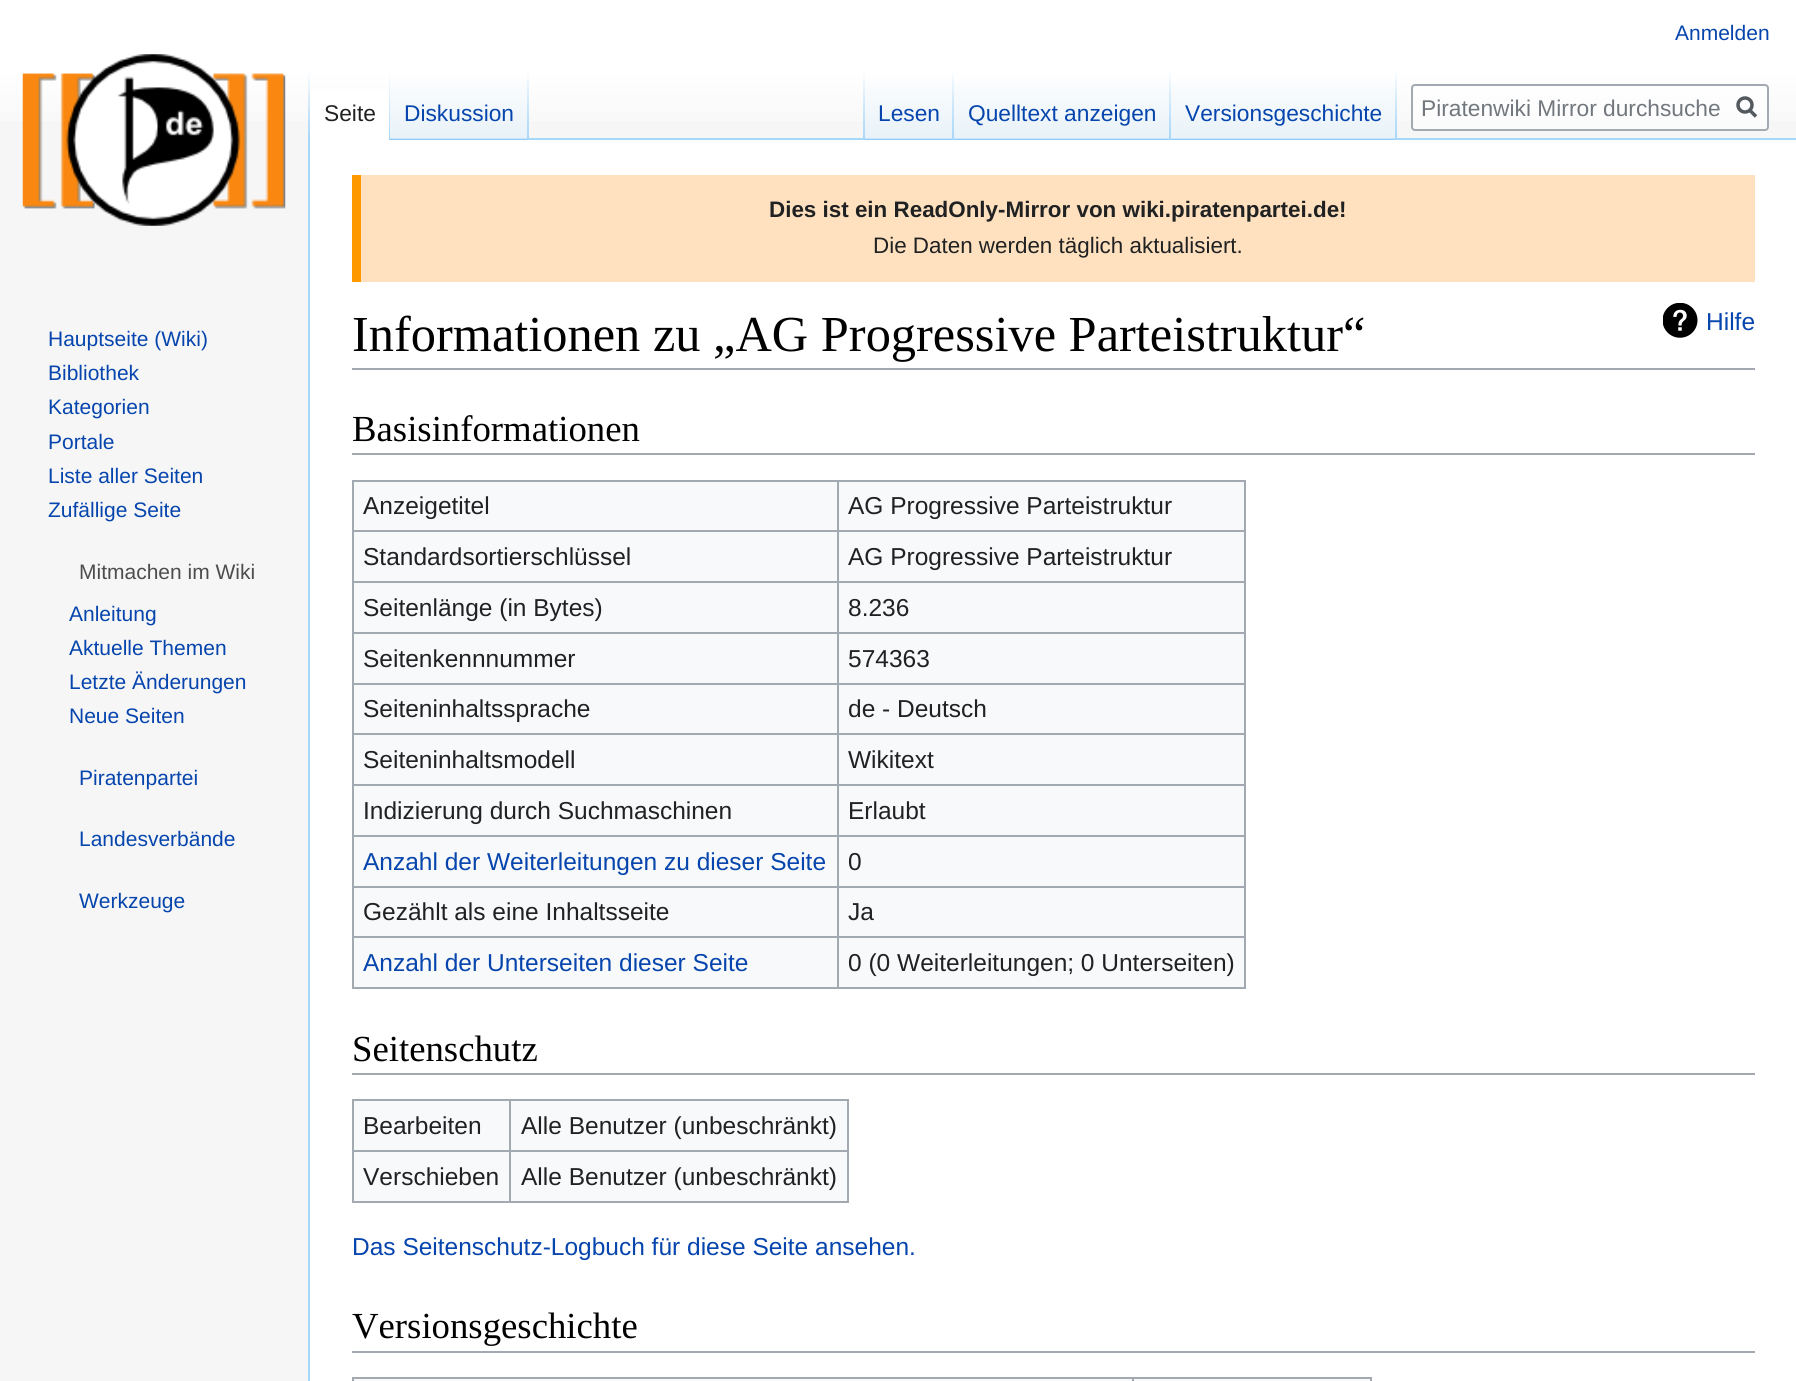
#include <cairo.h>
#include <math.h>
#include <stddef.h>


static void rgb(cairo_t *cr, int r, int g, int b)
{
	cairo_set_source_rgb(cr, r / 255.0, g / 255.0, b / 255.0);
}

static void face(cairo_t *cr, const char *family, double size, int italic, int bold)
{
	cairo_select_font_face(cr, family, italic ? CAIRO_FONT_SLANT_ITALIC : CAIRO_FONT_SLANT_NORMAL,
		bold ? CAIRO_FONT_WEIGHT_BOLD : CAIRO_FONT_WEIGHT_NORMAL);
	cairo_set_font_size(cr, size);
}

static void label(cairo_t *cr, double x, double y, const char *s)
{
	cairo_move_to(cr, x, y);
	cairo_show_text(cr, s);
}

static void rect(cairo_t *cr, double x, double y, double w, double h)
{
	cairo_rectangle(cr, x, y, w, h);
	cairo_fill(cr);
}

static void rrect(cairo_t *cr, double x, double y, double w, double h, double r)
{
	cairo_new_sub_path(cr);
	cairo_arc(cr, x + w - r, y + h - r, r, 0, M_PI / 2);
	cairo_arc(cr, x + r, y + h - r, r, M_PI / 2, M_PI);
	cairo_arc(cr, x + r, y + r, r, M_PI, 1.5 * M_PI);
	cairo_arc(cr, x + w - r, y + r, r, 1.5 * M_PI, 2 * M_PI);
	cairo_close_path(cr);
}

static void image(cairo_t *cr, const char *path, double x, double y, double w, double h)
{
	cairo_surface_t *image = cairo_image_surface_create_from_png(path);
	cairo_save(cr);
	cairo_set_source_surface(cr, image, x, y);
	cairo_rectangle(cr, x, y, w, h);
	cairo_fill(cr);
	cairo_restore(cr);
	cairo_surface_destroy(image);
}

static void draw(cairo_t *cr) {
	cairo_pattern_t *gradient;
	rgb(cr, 246, 246, 246);
	cairo_paint(cr);
	gradient = cairo_pattern_create_linear(899, 0, 899, 140);
	cairo_pattern_add_color_stop_rgba(gradient, 0.5, 1, 1, 1, 1);
	cairo_pattern_add_color_stop_rgba(gradient, 1, 0.965, 0.965, 0.965, 1);
	cairo_set_source(cr, gradient);
	cairo_pattern_destroy(gradient);
	rect(cr, 0, 0, 1796, 121);
	face(cr, "Liberation Sans", 21, 0, 0);
	rgb(cr, 6, 69, 173);
	label(cr, 1675, 40, "Anmelden");
	rgb(cr, 167, 215, 249);
	rect(cr, 308, 138, 2, 1243);
	gradient = cairo_pattern_create_linear(309, 70, 309, 140);
	cairo_pattern_add_color_stop_rgba(gradient, 0, 0.655, 0.843, 0.976, 0);
	cairo_pattern_add_color_stop_rgba(gradient, 1, 0.655, 0.843, 0.976, 1);
	cairo_set_source(cr, gradient);
	cairo_pattern_destroy(gradient);
	rect(cr, 308, 70, 2, 70);
	rgb(cr, 255, 255, 255);
	rect(cr, 310, 89, 79, 51);
	gradient = cairo_pattern_create_linear(389, 70, 389, 140);
	cairo_pattern_add_color_stop_rgba(gradient, 0, 1, 1, 1, 1);
	cairo_pattern_add_color_stop_rgba(gradient, 1, 0.655, 0.843, 0.976, 1);
	cairo_set_source(cr, gradient);
	cairo_pattern_destroy(gradient);
	rect(cr, 389, 70, 1, 70);
	face(cr, "Liberation Sans", 22.75, 0, 0);
	rgb(cr, 32, 33, 34);
	label(cr, 324, 121, "Seite");
	gradient = cairo_pattern_create_linear(459, 140, 459, 70);
	cairo_pattern_add_color_stop_rgba(gradient, 0, 0.467, 0.757, 0.965, 1);
	cairo_pattern_add_color_stop_rgba(gradient, 0.03, 0.91, 0.949, 0.973, 1);
	cairo_pattern_add_color_stop_rgba(gradient, 1, 1, 1, 1, 1);
	cairo_set_source(cr, gradient);
	cairo_pattern_destroy(gradient);
	rect(cr, 390, 80, 139, 60);
	gradient = cairo_pattern_create_linear(528, 70, 528, 140);
	cairo_pattern_add_color_stop_rgba(gradient, 0, 0.655, 0.843, 0.976, 0);
	cairo_pattern_add_color_stop_rgba(gradient, 1, 0.655, 0.843, 0.976, 1);
	cairo_set_source(cr, gradient);
	cairo_pattern_destroy(gradient);
	rect(cr, 527, 70, 2, 70);
	rgb(cr, 6, 69, 173);
	label(cr, 404, 121, "Diskussion");
	rgb(cr, 167, 215, 249);
	rect(cr, 529, 138, 1267, 2);
	gradient = cairo_pattern_create_linear(864, 70, 864, 140);
	cairo_pattern_add_color_stop_rgba(gradient, 0, 0.655, 0.843, 0.976, 0);
	cairo_pattern_add_color_stop_rgba(gradient, 1, 0.655, 0.843, 0.976, 1);
	cairo_set_source(cr, gradient);
	cairo_pattern_destroy(gradient);
	rect(cr, 863, 70, 2, 70);
	gradient = cairo_pattern_create_linear(909, 140, 909, 70);
	cairo_pattern_add_color_stop_rgba(gradient, 0, 0.467, 0.757, 0.965, 1);
	cairo_pattern_add_color_stop_rgba(gradient, 0.03, 0.91, 0.949, 0.973, 1);
	cairo_pattern_add_color_stop_rgba(gradient, 1, 1, 1, 1, 1);
	cairo_set_source(cr, gradient);
	cairo_pattern_destroy(gradient);
	rect(cr, 865, 80, 89, 60);
	gradient = cairo_pattern_create_linear(953, 70, 953, 140);
	cairo_pattern_add_color_stop_rgba(gradient, 0, 0.655, 0.843, 0.976, 0);
	cairo_pattern_add_color_stop_rgba(gradient, 1, 0.655, 0.843, 0.976, 1);
	cairo_set_source(cr, gradient);
	cairo_pattern_destroy(gradient);
	rect(cr, 952, 70, 2, 70);
	rgb(cr, 6, 69, 173);
	label(cr, 878, 121, "Lesen");
	gradient = cairo_pattern_create_linear(1062, 140, 1062, 70);
	cairo_pattern_add_color_stop_rgba(gradient, 0, 0.467, 0.757, 0.965, 1);
	cairo_pattern_add_color_stop_rgba(gradient, 0.03, 0.91, 0.949, 0.973, 1);
	cairo_pattern_add_color_stop_rgba(gradient, 1, 1, 1, 1, 1);
	cairo_set_source(cr, gradient);
	cairo_pattern_destroy(gradient);
	rect(cr, 954, 80, 217, 60);
	gradient = cairo_pattern_create_linear(1170, 70, 1170, 140);
	cairo_pattern_add_color_stop_rgba(gradient, 0, 0.655, 0.843, 0.976, 0);
	cairo_pattern_add_color_stop_rgba(gradient, 1, 0.655, 0.843, 0.976, 1);
	cairo_set_source(cr, gradient);
	cairo_pattern_destroy(gradient);
	rect(cr, 1169, 70, 2, 70);
	rgb(cr, 6, 69, 173);
	label(cr, 968, 121, "Quelltext anzeigen");
	gradient = cairo_pattern_create_linear(1284, 140, 1284, 70);
	cairo_pattern_add_color_stop_rgba(gradient, 0, 0.467, 0.757, 0.965, 1);
	cairo_pattern_add_color_stop_rgba(gradient, 0.03, 0.91, 0.949, 0.973, 1);
	cairo_pattern_add_color_stop_rgba(gradient, 1, 1, 1, 1, 1);
	cairo_set_source(cr, gradient);
	cairo_pattern_destroy(gradient);
	rect(cr, 1171, 80, 226, 60);
	gradient = cairo_pattern_create_linear(1396, 70, 1396, 140);
	cairo_pattern_add_color_stop_rgba(gradient, 0, 0.655, 0.843, 0.976, 0);
	cairo_pattern_add_color_stop_rgba(gradient, 1, 0.655, 0.843, 0.976, 1);
	cairo_set_source(cr, gradient);
	cairo_pattern_destroy(gradient);
	rect(cr, 1395, 70, 2, 70);
	rgb(cr, 6, 69, 173);
	label(cr, 1185, 121, "Versionsgeschichte");
	cairo_set_source_rgba(cr, 1, 1, 1, 0.5);
	rrect(cr, 1412, 85, 356, 45, 3);
	cairo_fill_preserve(cr);
	rgb(cr, 162, 169, 177);
	cairo_stroke(cr);
	rgb(cr, 114, 119, 125);
	label(cr, 1421, 116, "Piratenwiki Mirror durchsuche");
	cairo_new_path(cr);
	cairo_move_to(cr, 1756, 116.5);
	cairo_line_to(cr, 1749, 109.5);
	rgb(cr, 84, 89, 93);
	cairo_set_line_width(cr, 3.5);
	cairo_stroke(cr);
	cairo_arc(cr, 1745, 105, 7, 0, 2 * M_PI);
	cairo_stroke(cr);
	image(cr, "image0.png", 22, 54, 264, 172);
	face(cr, "Liberation Sans", 21, 0, 0);
	rgb(cr, 6, 69, 173);
	label(cr, 48, 346, "Hauptseite (Wiki)");
	label(cr, 48, 380, "Bibliothek");
	label(cr, 48, 414, "Kategorien");
	label(cr, 48, 449, "Portale");
	label(cr, 48, 483, "Liste aller Seiten");
	label(cr, 48, 517, "Zufällige Seite");
	rgb(cr, 121, 121, 121);
	cairo_new_path(cr);
	cairo_move_to(cr, 162.5, 571);
	cairo_line_to(cr, 162, 571.5);
	cairo_line_to(cr, 161.5, 571);
	cairo_close_path(cr);
	cairo_fill(cr);
	rgb(cr, 77, 77, 77);
	label(cr, 79, 579, "Mitmachen im Wiki");
	rgb(cr, 6, 69, 173);
	label(cr, 69, 621, "Anleitung");
	label(cr, 69, 655, "Aktuelle Themen");
	label(cr, 69, 689, "Letzte Änderungen");
	label(cr, 69, 723, "Neue Seiten");
	rgb(cr, 121, 121, 121);
	cairo_new_path(cr);
	cairo_move_to(cr, 162, 777.5);
	cairo_line_to(cr, 162.5, 778);
	cairo_line_to(cr, 162, 778.5);
	cairo_close_path(cr);
	cairo_fill(cr);
	rgb(cr, 6, 69, 173);
	label(cr, 79, 785, "Piratenpartei");
	rgb(cr, 121, 121, 121);
	cairo_new_path(cr);
	cairo_move_to(cr, 162, 838.5);
	cairo_line_to(cr, 162.5, 839);
	cairo_line_to(cr, 162, 839.5);
	cairo_close_path(cr);
	cairo_fill(cr);
	rgb(cr, 6, 69, 173);
	label(cr, 79, 846, "Landesverbände");
	rgb(cr, 121, 121, 121);
	cairo_new_path(cr);
	cairo_move_to(cr, 162, 900);
	cairo_line_to(cr, 162.5, 900.5);
	cairo_line_to(cr, 162, 901);
	cairo_close_path(cr);
	cairo_fill(cr);
	rgb(cr, 6, 69, 173);
	label(cr, 79, 908, "Werkzeuge");
	rgb(cr, 255, 255, 255);
	rect(cr, 310, 140, 1486, 1241);
	rgb(cr, 255, 225, 191);
	rect(cr, 361, 175, 1394, 107);
	rgb(cr, 255, 153, 0);
	rect(cr, 352, 175, 9, 107);
	face(cr, "Liberation Sans", 22.4, 0, 1);
	rgb(cr, 32, 33, 34);
	label(cr, 769, 217, "Dies ist ein ReadOnly-Mirror von wiki.piratenpartei.de!");
	face(cr, "Liberation Sans", 22.4, 0, 0);
	label(cr, 873, 253, "Die Daten werden täglich aktualisiert.");
	rgb(cr, 162, 169, 177);
	rect(cr, 352, 368, 1403, 2);
	face(cr, "Liberation Serif", 50.4, 0, 0);
	rgb(cr, 0, 0, 0);
	label(cr, 352, 351, "Informationen zu „AG Progressive Parteistruktur“");
	image(cr, "image1.png", 1663, 303, 35, 35);
	face(cr, "Liberation Sans", 24.5, 0, 0);
	rgb(cr, 6, 69, 173);
	label(cr, 1706, 330, "Hilfe");
	rgb(cr, 162, 169, 177);
	rect(cr, 352, 453, 1403, 2);
	face(cr, "Liberation Serif", 36.75, 0, 0);
	rgb(cr, 0, 0, 0);
	label(cr, 352, 441, "Basisinformationen");
	rgb(cr, 248, 249, 250);
	rect(cr, 354, 482, 890, 505);
	rgb(cr, 162, 169, 177);
	rect(cr, 352, 480, 894, 2);
	rect(cr, 1244, 480, 2, 509);
	rect(cr, 352, 987, 894, 2);
	rect(cr, 352, 480, 2, 509);
	face(cr, "Liberation Sans", 24.5, 0, 0);
	rgb(cr, 32, 33, 34);
	label(cr, 363, 514, "Anzeigetitel");
	rgb(cr, 162, 169, 177);
	rect(cr, 837, 530, 409, 2);
	rect(cr, 837, 581, 409, 2);
	rect(cr, 837, 632, 409, 2);
	rect(cr, 837, 683, 409, 2);
	rect(cr, 837, 733, 409, 2);
	rect(cr, 837, 784, 409, 2);
	rect(cr, 837, 835, 409, 2);
	rect(cr, 837, 886, 409, 2);
	rect(cr, 837, 936, 409, 2);
	rect(cr, 837, 936, 2, 53);
	rect(cr, 352, 936, 486, 2);
	rect(cr, 837, 886, 2, 52);
	rect(cr, 352, 886, 486, 2);
	rect(cr, 837, 835, 2, 52);
	rect(cr, 352, 835, 486, 2);
	rect(cr, 837, 784, 2, 53);
	rect(cr, 352, 784, 486, 2);
	rect(cr, 837, 733, 2, 53);
	rect(cr, 352, 733, 486, 2);
	rect(cr, 837, 683, 2, 52);
	rect(cr, 352, 683, 486, 2);
	rect(cr, 837, 632, 2, 52);
	rect(cr, 352, 632, 486, 2);
	rect(cr, 837, 581, 2, 53);
	rect(cr, 352, 581, 486, 2);
	rect(cr, 837, 530, 2, 53);
	rect(cr, 352, 530, 486, 2);
	rect(cr, 837, 480, 2, 52);
	rgb(cr, 32, 33, 34);
	label(cr, 848, 514, "AG Progressive Parteistruktur");
	label(cr, 363, 565, "Standardsortierschlüssel");
	label(cr, 848, 565, "AG Progressive Parteistruktur");
	label(cr, 363, 616, "Seitenlänge (in Bytes)");
	label(cr, 848, 616, "8.236");
	label(cr, 363, 667, "Seitenkennnummer");
	label(cr, 848, 667, "574363");
	label(cr, 363, 717, "Seiteninhaltssprache");
	label(cr, 848, 717, "de - Deutsch");
	label(cr, 363, 768, "Seiteninhaltsmodell");
	label(cr, 848, 768, "Wikitext");
	label(cr, 363, 819, "Indizierung durch Suchmaschinen");
	label(cr, 848, 819, "Erlaubt");
	rgb(cr, 6, 69, 173);
	label(cr, 363, 870, "Anzahl der Weiterleitungen zu dieser Seite");
	rgb(cr, 32, 33, 34);
	label(cr, 848, 870, "0");
	label(cr, 363, 920, "Gezählt als eine Inhaltsseite");
	label(cr, 848, 920, "Ja");
	rgb(cr, 6, 69, 173);
	label(cr, 363, 971, "Anzahl der Unterseiten dieser Seite");
	rgb(cr, 32, 33, 34);
	label(cr, 848, 971, "0 (0 Weiterleitungen; 0 Unterseiten)");
	rgb(cr, 162, 169, 177);
	rect(cr, 352, 1073, 1403, 2);
	face(cr, "Liberation Serif", 36.75, 0, 0);
	rgb(cr, 0, 0, 0);
	label(cr, 352, 1061, "Seitenschutz");
	rgb(cr, 248, 249, 250);
	rect(cr, 354, 1101, 493, 100);
	rgb(cr, 162, 169, 177);
	rect(cr, 352, 1099, 497, 2);
	rect(cr, 847, 1099, 2, 103);
	rect(cr, 352, 1201, 497, 2);
	rect(cr, 352, 1099, 2, 103);
	face(cr, "Liberation Sans", 24.5, 0, 0);
	rgb(cr, 32, 33, 34);
	label(cr, 363, 1134, "Bearbeiten");
	rgb(cr, 162, 169, 177);
	rect(cr, 509, 1150, 340, 2);
	rect(cr, 509, 1150, 2, 52);
	rect(cr, 352, 1150, 159, 2);
	rect(cr, 509, 1099, 2, 53);
	rgb(cr, 32, 33, 34);
	label(cr, 521, 1134, "Alle Benutzer (unbeschränkt)");
	label(cr, 363, 1185, "Verschieben");
	label(cr, 521, 1185, "Alle Benutzer (unbeschränkt)");
	rgb(cr, 6, 69, 173);
	label(cr, 352, 1255, "Das Seitenschutz-Logbuch für diese Seite ansehen.");
	rgb(cr, 162, 169, 177);
	rect(cr, 352, 1351, 1403, 2);
	face(cr, "Liberation Serif", 36.75, 0, 0);
	rgb(cr, 0, 0, 0);
	label(cr, 352, 1338, "Versionsgeschichte");
	rgb(cr, 248, 249, 250);
	rect(cr, 352, 1379, 1020, 2);
	rgb(cr, 162, 169, 177);
	rect(cr, 352, 1377, 1020, 2);
	rect(cr, 1370, 1377, 2, 4);
	rect(cr, 352, 1377, 2, 4);
	rect(cr, 1132, 1377, 2, 4);
}

int main(void) {
	cairo_surface_t *surface = cairo_image_surface_create(CAIRO_FORMAT_RGB24, 1796, 1381);
	cairo_t *cr = cairo_create(surface);
	cairo_font_options_t *options = cairo_font_options_create();
	cairo_font_options_set_hint_metrics(options, CAIRO_HINT_METRICS_OFF);
	cairo_font_options_set_hint_style(options, CAIRO_HINT_STYLE_NONE);
	cairo_set_font_options(cr, options);
	cairo_set_miter_limit(cr, 4);
	draw(cr);
	cairo_surface_write_to_png(surface, "render.png");
	cairo_font_options_destroy(options);
	cairo_destroy(cr);
	cairo_surface_destroy(surface);
	return 0;
}
